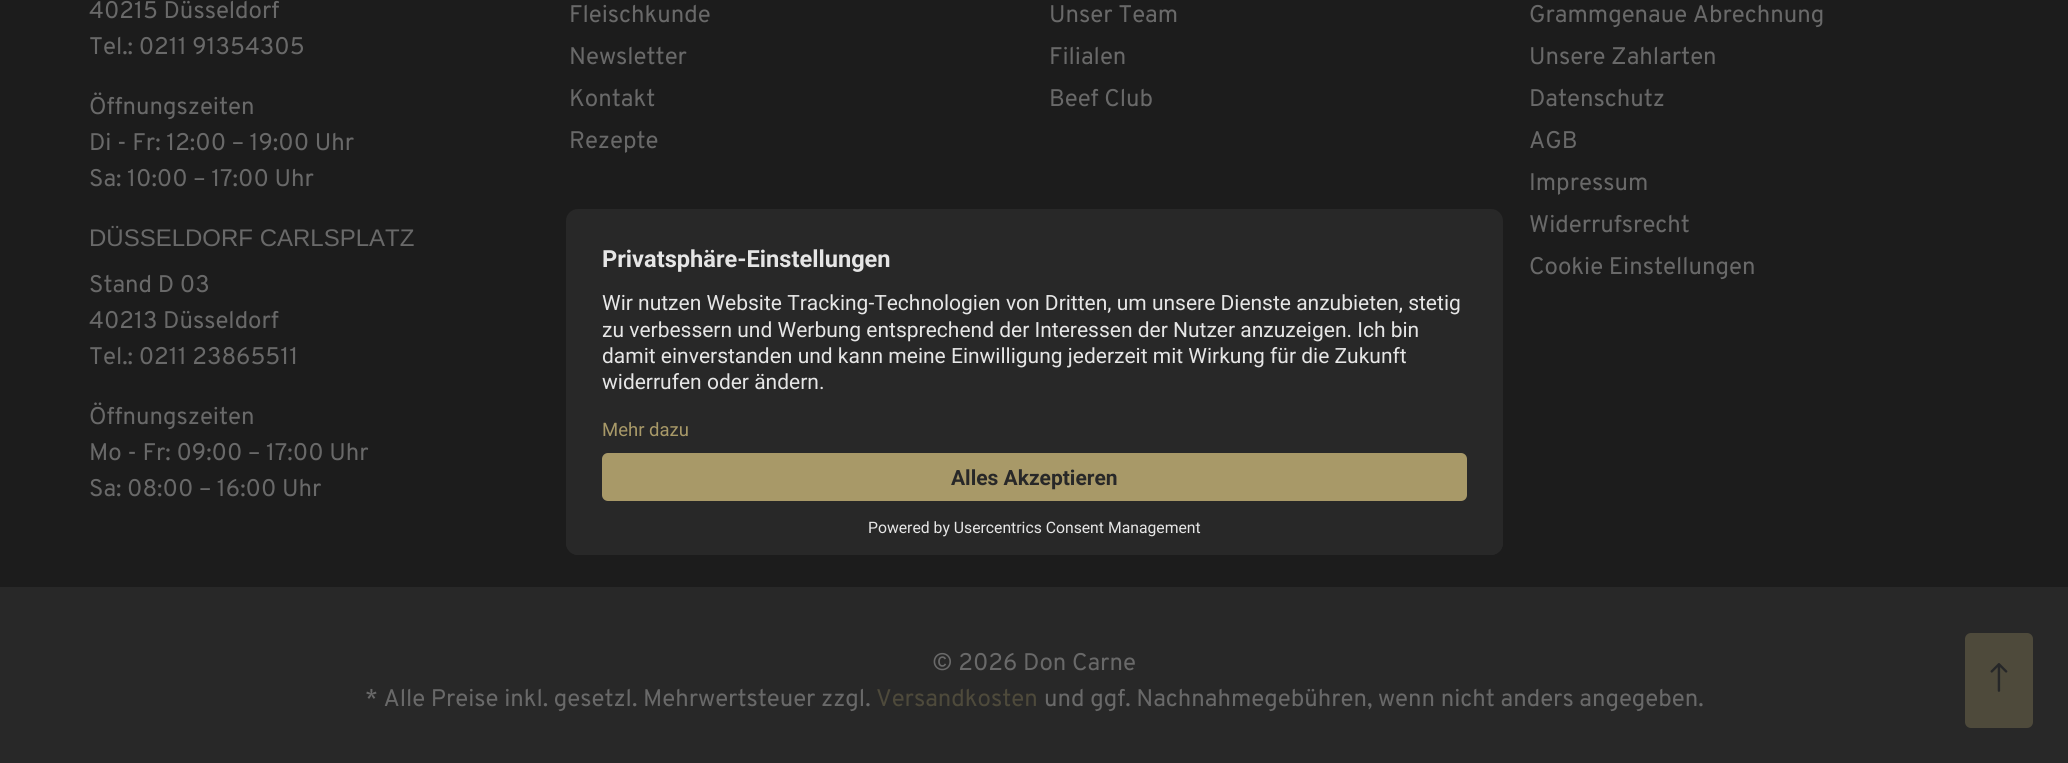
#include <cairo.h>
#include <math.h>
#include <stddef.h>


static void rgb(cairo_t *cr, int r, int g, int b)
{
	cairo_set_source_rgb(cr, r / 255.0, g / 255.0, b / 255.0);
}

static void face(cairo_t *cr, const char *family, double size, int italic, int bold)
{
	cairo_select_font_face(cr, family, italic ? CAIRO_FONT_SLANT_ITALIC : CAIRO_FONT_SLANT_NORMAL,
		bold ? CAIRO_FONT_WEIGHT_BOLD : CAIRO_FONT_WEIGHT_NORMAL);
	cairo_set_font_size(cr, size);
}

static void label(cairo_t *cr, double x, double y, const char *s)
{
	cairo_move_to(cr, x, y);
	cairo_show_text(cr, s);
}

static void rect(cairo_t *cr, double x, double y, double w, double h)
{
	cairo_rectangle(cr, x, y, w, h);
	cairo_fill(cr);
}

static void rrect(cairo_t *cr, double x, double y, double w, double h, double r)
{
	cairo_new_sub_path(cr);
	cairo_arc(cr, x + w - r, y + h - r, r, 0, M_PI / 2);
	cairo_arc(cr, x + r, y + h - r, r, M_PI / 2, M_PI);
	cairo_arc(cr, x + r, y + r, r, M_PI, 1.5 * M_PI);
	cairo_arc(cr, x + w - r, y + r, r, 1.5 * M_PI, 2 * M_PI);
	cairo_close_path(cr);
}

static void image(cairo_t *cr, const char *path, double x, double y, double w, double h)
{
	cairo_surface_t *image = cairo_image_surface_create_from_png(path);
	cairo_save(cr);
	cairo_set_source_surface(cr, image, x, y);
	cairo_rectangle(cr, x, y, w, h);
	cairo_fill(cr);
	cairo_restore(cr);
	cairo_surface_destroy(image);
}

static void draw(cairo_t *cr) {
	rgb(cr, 28, 28, 28);
	cairo_paint(cr);
	face(cr, "Overpass", 24, 0, 0);
	rgb(cr, 105, 105, 105);
	label(cr, 89, 18, "40215 Düsseldorf");
	label(cr, 89, 54, "Tel.: 0211 91354305");
	label(cr, 89, 114, "Öffnungszeiten");
	label(cr, 89, 150, "Di - Fr: 12:00 – 19:00 Uhr");
	label(cr, 89, 186, "Sa: 10:00 – 17:00 Uhr");
	face(cr, "Liberation Sans", 24, 0, 0);
	label(cr, 89, 246, "DÜSSELDORF CARLSPLATZ");
	face(cr, "Overpass", 24, 0, 0);
	label(cr, 89, 292, "Stand D 03");
	label(cr, 89, 328, "40213 Düsseldorf");
	label(cr, 89, 364, "Tel.: 0211 23865511");
	label(cr, 89, 424, "Öffnungszeiten");
	label(cr, 89, 460, "Mo - Fr: 09:00 – 17:00 Uhr");
	label(cr, 89, 496, "Sa: 08:00 – 16:00 Uhr");
	label(cr, 569, 22, "Fleischkunde");
	label(cr, 569, 64, "Newsletter");
	label(cr, 569, 106, "Kontakt");
	label(cr, 569, 148, "Rezepte");
	label(cr, 1049, 22, "Unser Team");
	label(cr, 1049, 64, "Filialen");
	label(cr, 1049, 106, "Beef Club");
	label(cr, 1529, 22, "Grammgenaue Abrechnung");
	label(cr, 1529, 64, "Unsere Zahlarten");
	label(cr, 1529, 106, "Datenschutz");
	label(cr, 1529, 148, "AGB");
	label(cr, 1529, 190, "Impressum");
	label(cr, 1529, 232, "Widerrufsrecht");
	label(cr, 1529, 274, "Cookie Einstellungen");
	rgb(cr, 40, 40, 40);
	rect(cr, 0, 587, 2068, 176);
	rgb(cr, 105, 105, 105);
	label(cr, 932, 670, "© 2026 Don Carne");
	label(cr, 365, 706, "* Alle Preise inkl. gesetzl. Mehrwertsteuer zzgl.");
	rgb(cr, 78, 74, 59);
	label(cr, 876, 706, "Versandkosten");
	rgb(cr, 105, 105, 105);
	label(cr, 1044, 706, "und ggf. Nachnahmegebühren, wenn nicht anders angegeben.");
	rgb(cr, 40, 40, 40);
	rrect(cr, 566, 209, 937, 346, 12);
	cairo_fill(cr);
	face(cr, "Roboto", 23.6, 0, 1);
	rgb(cr, 230, 230, 230);
	label(cr, 602, 267, "Privatsphäre-Einstellungen");
	face(cr, "Roboto", 21, 0, 0);
	label(cr, 602, 310, "Wir nutzen Website Tracking-Technologien von Dritten, um unsere Dienste anzubieten, stetig");
	label(cr, 602, 337, "zu verbessern und Werbung entsprechend der Interessen der Nutzer anzuzeigen. Ich bin");
	label(cr, 602, 363, "damit einverstanden und kann meine Einwilligung jederzeit mit Wirkung für die Zukunft");
	label(cr, 602, 389, "widerrufen oder ändern.");
	face(cr, "Roboto", 18.5, 0, 0);
	rgb(cr, 168, 153, 104);
	label(cr, 602, 436, "Mehr dazu");
	rgb(cr, 40, 40, 40);
	cairo_new_path(cr);
	cairo_move_to(cr, 566, 441);
	cairo_line_to(cr, 1503, 441);
	cairo_line_to(cr, 1503, 543);
	cairo_curve_to(cr, 1503, 549.5, 1497.5, 555, 1491, 555);
	cairo_line_to(cr, 578, 555);
	cairo_curve_to(cr, 571.5, 555, 566, 549.5, 566, 543);
	cairo_close_path(cr);
	cairo_fill(cr);
	rgb(cr, 168, 153, 104);
	rrect(cr, 602, 453, 865, 48, 6);
	cairo_fill(cr);
	face(cr, "Roboto", 21, 0, 1);
	rgb(cr, 40, 40, 40);
	label(cr, 951, 485, "Alles Akzeptieren");
	face(cr, "Roboto", 15.75, 0, 0);
	rgb(cr, 230, 230, 230);
	label(cr, 868, 533, "Powered by Usercentrics Consent Management");
	rgb(cr, 78, 74, 59);
	rrect(cr, 1966, 634, 66, 93, 5);
	cairo_fill_preserve(cr);
	cairo_stroke(cr);
	image(cr, "image0.png", 1990, 663, 18, 29);
}

int main(void) {
	cairo_surface_t *surface = cairo_image_surface_create(CAIRO_FORMAT_RGB24, 2068, 763);
	cairo_t *cr = cairo_create(surface);
	cairo_font_options_t *options = cairo_font_options_create();
	cairo_font_options_set_hint_metrics(options, CAIRO_HINT_METRICS_OFF);
	cairo_font_options_set_hint_style(options, CAIRO_HINT_STYLE_NONE);
	cairo_set_font_options(cr, options);
	cairo_set_miter_limit(cr, 4);
	draw(cr);
	cairo_surface_write_to_png(surface, "render.png");
	cairo_font_options_destroy(options);
	cairo_destroy(cr);
	cairo_surface_destroy(surface);
	return 0;
}
